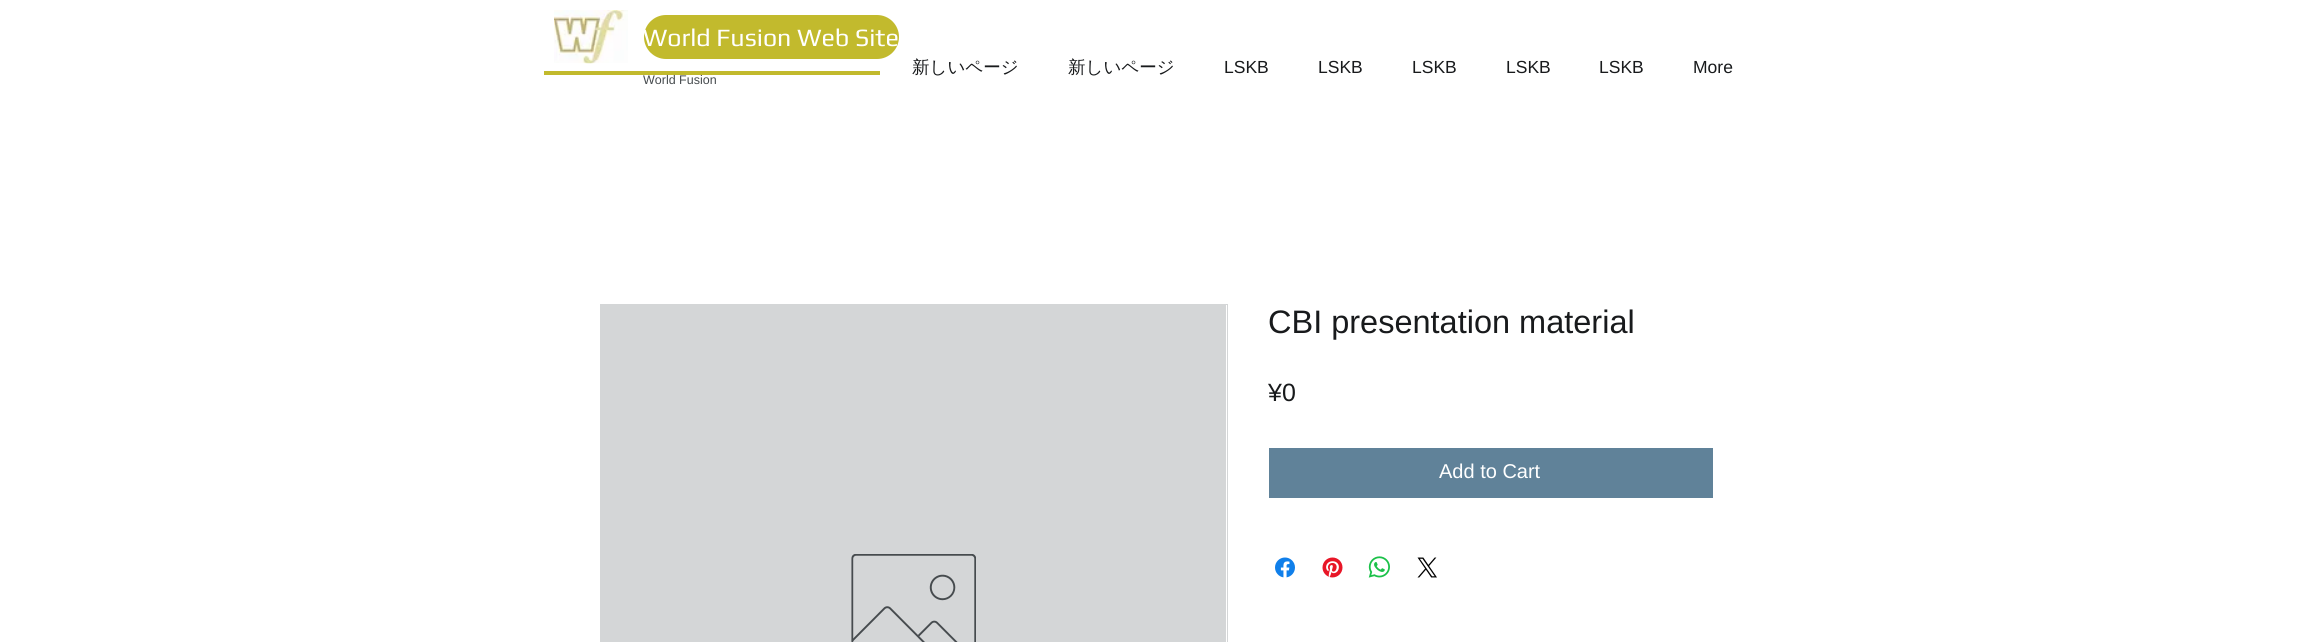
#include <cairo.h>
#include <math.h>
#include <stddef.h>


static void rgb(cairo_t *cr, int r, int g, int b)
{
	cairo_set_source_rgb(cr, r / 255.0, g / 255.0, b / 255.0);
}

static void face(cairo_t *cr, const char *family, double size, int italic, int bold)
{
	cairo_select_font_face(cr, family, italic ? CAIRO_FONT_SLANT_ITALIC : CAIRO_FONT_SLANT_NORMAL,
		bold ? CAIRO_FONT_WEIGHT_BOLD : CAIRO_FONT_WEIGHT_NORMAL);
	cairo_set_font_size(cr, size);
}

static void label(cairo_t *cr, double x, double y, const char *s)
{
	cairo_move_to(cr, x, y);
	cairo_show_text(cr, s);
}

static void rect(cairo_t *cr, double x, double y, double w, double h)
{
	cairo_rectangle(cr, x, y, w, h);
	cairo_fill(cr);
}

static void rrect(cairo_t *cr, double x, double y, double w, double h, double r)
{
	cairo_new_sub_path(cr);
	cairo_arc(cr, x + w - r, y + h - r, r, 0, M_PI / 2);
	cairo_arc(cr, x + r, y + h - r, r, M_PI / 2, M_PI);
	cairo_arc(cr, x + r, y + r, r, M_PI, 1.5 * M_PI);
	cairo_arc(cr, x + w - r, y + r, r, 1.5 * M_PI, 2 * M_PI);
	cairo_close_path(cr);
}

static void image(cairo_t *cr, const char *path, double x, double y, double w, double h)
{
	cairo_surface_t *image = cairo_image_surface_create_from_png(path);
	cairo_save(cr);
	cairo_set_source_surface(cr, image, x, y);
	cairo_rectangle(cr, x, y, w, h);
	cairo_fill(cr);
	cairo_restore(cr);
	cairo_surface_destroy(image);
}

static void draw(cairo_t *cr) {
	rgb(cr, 255, 255, 255);
	cairo_paint(cr);
	image(cr, "image0.png", 554, 10, 74, 54);
	rgb(cr, 194, 186, 45);
	rrect(cr, 644, 15, 255, 44, 22);
	cairo_fill(cr);
	face(cr, "Play", 25, 0, 0);
	rgb(cr, 255, 255, 255);
	label(cr, 643, 46, "World Fusion Web Site");
	rgb(cr, 194, 186, 45);
	rect(cr, 544, 71, 336, 4);
	face(cr, "WenQuanYi Zen Hei Medium", 17.5, 0, 0);
	rgb(cr, 24, 26, 28);
	label(cr, 912, 73, "新しいページ");
	label(cr, 1068, 73, "新しいページ");
	face(cr, "Liberation Sans", 17.5, 0, 0);
	label(cr, 1224, 73, "LSKB");
	label(cr, 1318, 73, "LSKB");
	label(cr, 1412, 73, "LSKB");
	label(cr, 1506, 73, "LSKB");
	label(cr, 1599, 73, "LSKB");
	label(cr, 1693, 73, "More");
	face(cr, "Liberation Sans", 12.5, 0, 0);
	rgb(cr, 70, 75, 78);
	label(cr, 643, 84, "World Fusion");
	cairo_rectangle(cr, 600.5, 304.5, 627, 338);
	rgb(cr, 212, 214, 215);
	cairo_set_line_width(cr, 1);
	cairo_stroke(cr);
	rect(cr, 601, 305, 625, 337);
	image(cr, "image1.png", 851, 554, 125, 88);
	face(cr, "Liberation Sans", 32.5, 0, 0);
	rgb(cr, 24, 26, 28);
	label(cr, 1268, 333, "CBI presentation material");
	face(cr, "Liberation Sans", 25, 0, 0);
	label(cr, 1268, 401, "¥0");
	rgb(cr, 96, 130, 153);
	rect(cr, 1269, 448, 444, 50);
	face(cr, "Liberation Sans", 20, 0, 0);
	rgb(cr, 255, 255, 255);
	label(cr, 1439, 478, "Add to Cart");
	image(cr, "image2.png", 1275, 557, 20, 21);
	image(cr, "image3.png", 1322, 557, 21, 21);
	image(cr, "image4.png", 1368, 556, 22, 22);
	image(cr, "image5.png", 1417, 557, 20, 21);
}

int main(void) {
	cairo_surface_t *surface = cairo_image_surface_create(CAIRO_FORMAT_RGB24, 2311, 642);
	cairo_t *cr = cairo_create(surface);
	cairo_font_options_t *options = cairo_font_options_create();
	cairo_font_options_set_hint_metrics(options, CAIRO_HINT_METRICS_OFF);
	cairo_font_options_set_hint_style(options, CAIRO_HINT_STYLE_NONE);
	cairo_set_font_options(cr, options);
	cairo_set_miter_limit(cr, 4);
	draw(cr);
	cairo_surface_write_to_png(surface, "render.png");
	cairo_font_options_destroy(options);
	cairo_destroy(cr);
	cairo_surface_destroy(surface);
	return 0;
}
